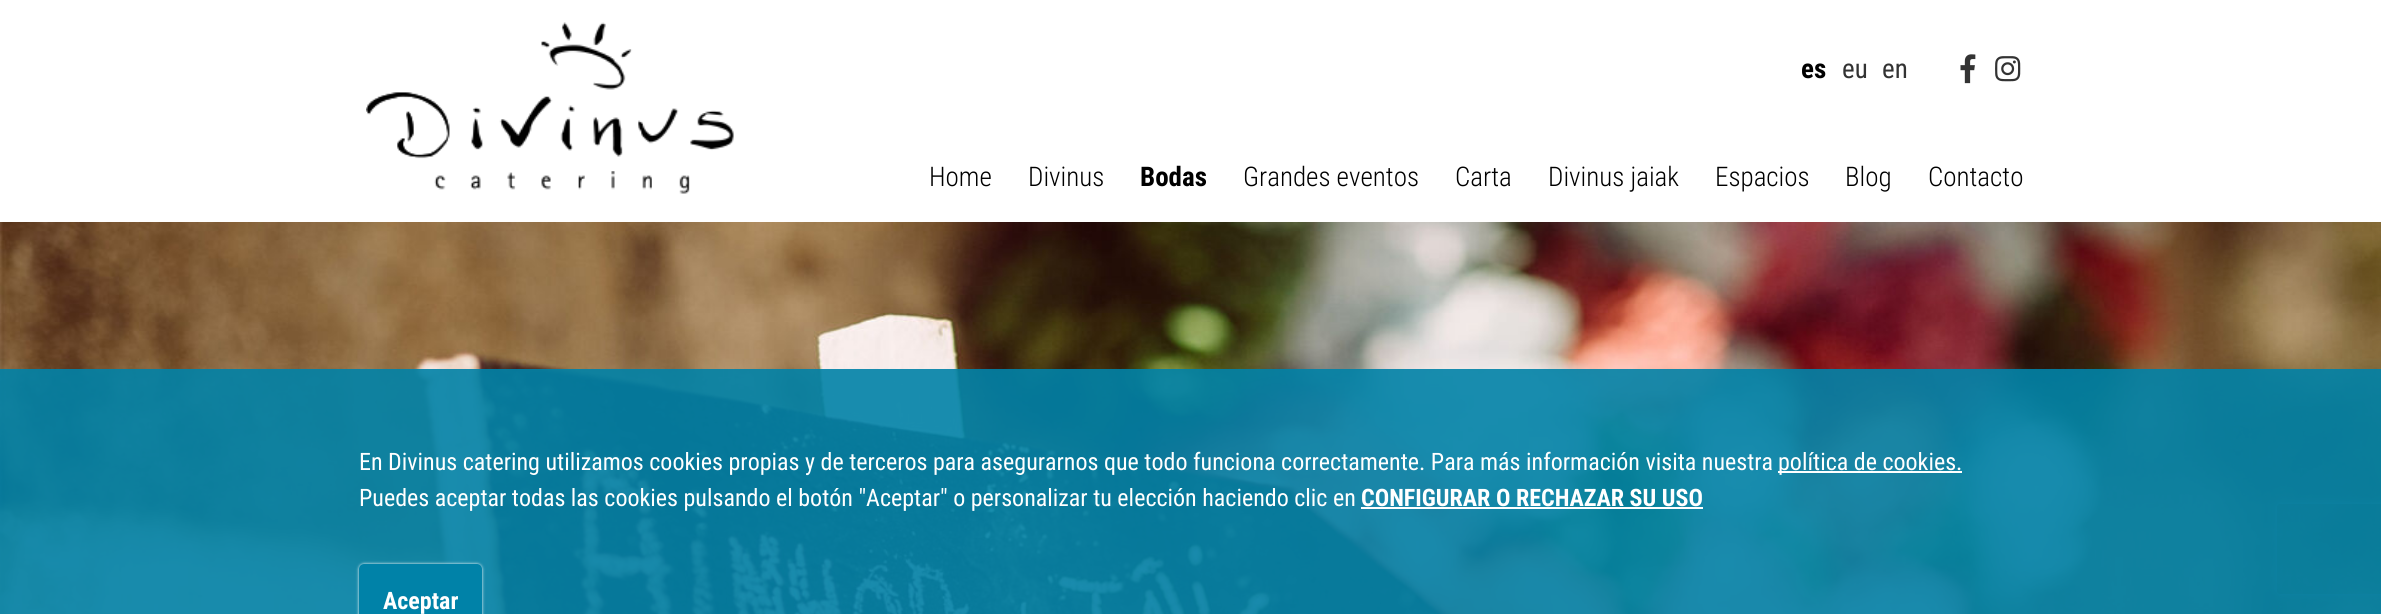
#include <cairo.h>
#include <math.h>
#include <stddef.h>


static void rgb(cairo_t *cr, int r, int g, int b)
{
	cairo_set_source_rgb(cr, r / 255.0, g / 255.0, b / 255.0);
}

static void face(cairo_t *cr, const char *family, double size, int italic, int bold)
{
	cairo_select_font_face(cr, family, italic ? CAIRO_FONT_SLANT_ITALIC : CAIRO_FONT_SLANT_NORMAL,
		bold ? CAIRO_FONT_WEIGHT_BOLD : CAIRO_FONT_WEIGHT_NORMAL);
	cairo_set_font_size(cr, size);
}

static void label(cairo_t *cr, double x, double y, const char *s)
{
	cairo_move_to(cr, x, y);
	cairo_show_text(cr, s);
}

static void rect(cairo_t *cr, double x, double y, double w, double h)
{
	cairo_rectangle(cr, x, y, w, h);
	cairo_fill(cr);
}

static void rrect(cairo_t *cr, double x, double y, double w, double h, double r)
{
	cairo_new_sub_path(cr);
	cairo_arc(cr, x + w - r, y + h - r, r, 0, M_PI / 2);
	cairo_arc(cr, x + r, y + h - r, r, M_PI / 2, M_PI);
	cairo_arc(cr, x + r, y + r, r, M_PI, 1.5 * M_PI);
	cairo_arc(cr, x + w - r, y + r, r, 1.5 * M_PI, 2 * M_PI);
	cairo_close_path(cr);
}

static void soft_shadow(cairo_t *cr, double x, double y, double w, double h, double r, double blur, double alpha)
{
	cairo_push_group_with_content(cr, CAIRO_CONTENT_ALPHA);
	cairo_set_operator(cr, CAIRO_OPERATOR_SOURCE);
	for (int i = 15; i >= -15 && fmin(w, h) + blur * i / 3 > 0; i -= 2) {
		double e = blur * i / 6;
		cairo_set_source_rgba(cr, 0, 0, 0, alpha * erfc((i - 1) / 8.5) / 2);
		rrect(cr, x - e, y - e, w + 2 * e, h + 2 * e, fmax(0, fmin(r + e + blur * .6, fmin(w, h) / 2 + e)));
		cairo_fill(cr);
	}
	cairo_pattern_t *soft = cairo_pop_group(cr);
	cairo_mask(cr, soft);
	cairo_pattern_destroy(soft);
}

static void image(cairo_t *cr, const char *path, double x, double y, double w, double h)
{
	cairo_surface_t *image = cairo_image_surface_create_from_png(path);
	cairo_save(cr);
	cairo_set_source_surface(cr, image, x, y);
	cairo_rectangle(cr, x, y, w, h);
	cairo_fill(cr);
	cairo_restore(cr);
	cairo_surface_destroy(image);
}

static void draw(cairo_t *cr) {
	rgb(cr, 255, 255, 255);
	cairo_paint(cr);
	image(cr, "image0.png", 366, 22, 368, 172);
	face(cr, "Roboto Condensed", 27, 0, 1);
	rgb(cr, 0, 0, 0);
	label(cr, 1801, 78, "es");
	face(cr, "Roboto Condensed", 27, 0, 0);
	rgb(cr, 51, 51, 51);
	label(cr, 1842, 78, "eu");
	label(cr, 1882, 78, "en");
	image(cr, "image1.png", 1960, 54, 16, 30);
	image(cr, "image2.png", 1995, 56, 26, 26);
	face(cr, "Roboto Condensed Light", 27, 0, 0);
	rgb(cr, 0, 0, 0);
	label(cr, 929, 186, "Home");
	label(cr, 1028, 186, "Divinus");
	face(cr, "Roboto Condensed", 27, 0, 1);
	label(cr, 1140, 186, "Bodas");
	face(cr, "Roboto Condensed Light", 27, 0, 0);
	label(cr, 1243, 186, "Grandes eventos");
	label(cr, 1455, 186, "Carta");
	label(cr, 1548, 186, "Divinus jaiak");
	label(cr, 1715, 186, "Espacios");
	label(cr, 1845, 186, "Blog");
	label(cr, 1928, 186, "Contacto");
	image(cr, "image3.png", 0, 222, 2381, 392);
	cairo_save(cr);
	cairo_set_fill_rule(cr, CAIRO_FILL_RULE_EVEN_ODD);
	cairo_new_path(cr);
	cairo_move_to(cr, 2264, 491);
	cairo_line_to(cr, 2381, 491);
	cairo_line_to(cr, 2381, 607);
	cairo_line_to(cr, 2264, 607);
	cairo_close_path(cr);
	cairo_move_to(cr, 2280, 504);
	cairo_line_to(cr, 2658, 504);
	cairo_curve_to(cr, 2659.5, 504, 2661, 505.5, 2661, 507);
	cairo_line_to(cr, 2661, 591);
	cairo_curve_to(cr, 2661, 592.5, 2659.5, 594, 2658, 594);
	cairo_line_to(cr, 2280, 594);
	cairo_curve_to(cr, 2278.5, 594, 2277, 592.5, 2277, 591);
	cairo_line_to(cr, 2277, 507);
	cairo_curve_to(cr, 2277, 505.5, 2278.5, 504, 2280, 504);
	cairo_close_path(cr);
	cairo_clip(cr);
	rgb(cr, 128, 128, 128);
	soft_shadow(cr, 2277, 504, 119, 90, 3, 4, 1);
	cairo_restore(cr);
	cairo_set_source_rgba(cr, 0, 0.51, 0.659, 0.9);
	rect(cr, 0, 369, 2381, 245);
	face(cr, "Roboto Condensed", 24, 0, 0);
	rgb(cr, 255, 255, 255);
	label(cr, 359, 470, "En Divinus catering utilizamos cookies propias y de terceros para asegurarnos que todo funciona correctamente. Para más información visita nuestra");
	rect(cr, 1778, 471, 184, 2);
	label(cr, 1778, 470, "política de cookies.");
	label(cr, 359, 506, "Puedes aceptar todas las cookies pulsando el botón \"Aceptar\" o personalizar tu elección haciendo clic en");
	face(cr, "Roboto Condensed", 24, 0, 1);
	label(cr, 1361, 506, "CONFIGURAR O RECHAZAR SU USO");
	rect(cr, 1361, 507, 342, 2);
	rgb(cr, 255, 255, 255);
	soft_shadow(cr, 359, 564, 123, 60, 5, 1.5, 1);
	rgb(cr, 0, 130, 168);
	rrect(cr, 359, 564, 123, 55, 5);
	cairo_fill(cr);
	rgb(cr, 255, 255, 255);
	label(cr, 383, 609, "Aceptar");
}

int main(void) {
	cairo_surface_t *surface = cairo_image_surface_create(CAIRO_FORMAT_RGB24, 2381, 614);
	cairo_t *cr = cairo_create(surface);
	cairo_font_options_t *options = cairo_font_options_create();
	cairo_font_options_set_hint_metrics(options, CAIRO_HINT_METRICS_OFF);
	cairo_font_options_set_hint_style(options, CAIRO_HINT_STYLE_NONE);
	cairo_set_font_options(cr, options);
	cairo_set_miter_limit(cr, 4);
	draw(cr);
	cairo_surface_write_to_png(surface, "render.png");
	cairo_font_options_destroy(options);
	cairo_destroy(cr);
	cairo_surface_destroy(surface);
	return 0;
}
